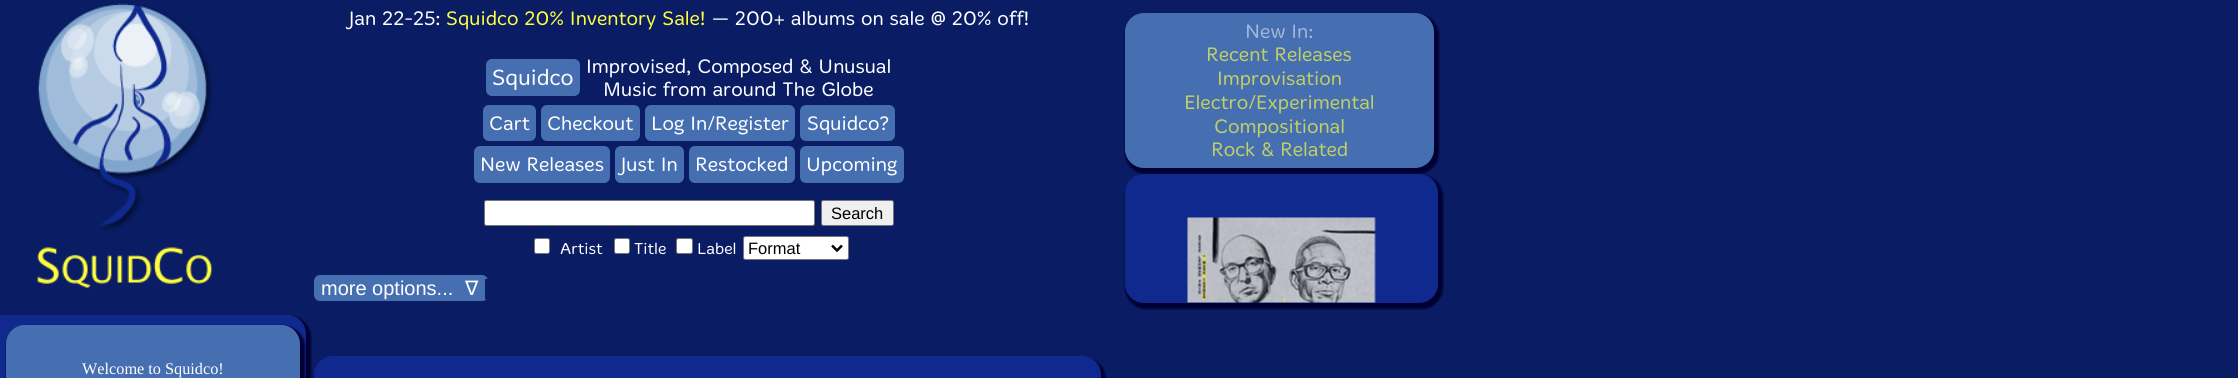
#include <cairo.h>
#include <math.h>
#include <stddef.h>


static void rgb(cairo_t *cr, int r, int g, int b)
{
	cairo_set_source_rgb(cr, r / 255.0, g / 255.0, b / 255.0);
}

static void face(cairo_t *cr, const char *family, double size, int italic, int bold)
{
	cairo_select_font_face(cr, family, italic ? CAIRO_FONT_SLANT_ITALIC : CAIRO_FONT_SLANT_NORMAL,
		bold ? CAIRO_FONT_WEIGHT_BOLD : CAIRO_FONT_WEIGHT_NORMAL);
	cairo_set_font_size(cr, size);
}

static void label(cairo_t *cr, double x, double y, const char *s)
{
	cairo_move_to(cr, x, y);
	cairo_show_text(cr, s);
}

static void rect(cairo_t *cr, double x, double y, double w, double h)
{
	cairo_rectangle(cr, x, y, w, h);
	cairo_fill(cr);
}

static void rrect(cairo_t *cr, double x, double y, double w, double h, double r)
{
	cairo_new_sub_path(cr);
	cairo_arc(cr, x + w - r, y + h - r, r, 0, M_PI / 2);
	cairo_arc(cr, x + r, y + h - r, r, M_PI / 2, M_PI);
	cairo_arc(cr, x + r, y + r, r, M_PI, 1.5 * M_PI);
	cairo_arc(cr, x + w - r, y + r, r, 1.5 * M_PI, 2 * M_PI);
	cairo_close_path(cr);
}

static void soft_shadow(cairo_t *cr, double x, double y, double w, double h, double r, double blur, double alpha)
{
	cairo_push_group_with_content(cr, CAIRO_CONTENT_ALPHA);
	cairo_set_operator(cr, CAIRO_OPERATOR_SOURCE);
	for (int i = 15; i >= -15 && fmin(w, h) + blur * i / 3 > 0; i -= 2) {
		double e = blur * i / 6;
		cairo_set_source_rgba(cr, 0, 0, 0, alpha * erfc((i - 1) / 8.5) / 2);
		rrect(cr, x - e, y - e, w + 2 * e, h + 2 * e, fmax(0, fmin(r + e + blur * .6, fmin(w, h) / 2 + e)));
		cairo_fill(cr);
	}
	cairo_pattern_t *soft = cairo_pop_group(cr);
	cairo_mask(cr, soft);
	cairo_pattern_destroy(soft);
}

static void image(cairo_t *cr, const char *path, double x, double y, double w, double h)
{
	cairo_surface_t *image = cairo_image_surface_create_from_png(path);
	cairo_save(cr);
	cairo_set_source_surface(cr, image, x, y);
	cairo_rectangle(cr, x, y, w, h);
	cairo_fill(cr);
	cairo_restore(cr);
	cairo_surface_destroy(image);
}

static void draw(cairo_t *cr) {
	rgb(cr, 10, 29, 100);
	cairo_paint(cr);
	image(cr, "image0.png", 38, 3, 175, 229);
	image(cr, "image1.png", 37, 247, 175, 42);
	face(cr, "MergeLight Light", 20, 0, 0);
	rgb(cr, 255, 255, 255);
	label(cr, 349, 25, "Jan 22-25:");
	rgb(cr, 255, 255, 65);
	label(cr, 446, 25, "Squidco 20% Inventory Sale!");
	rgb(cr, 255, 255, 255);
	label(cr, 712, 25, "— 200+ albums on sale @ 20% off!");
	rgb(cr, 69, 111, 177);
	rrect(cr, 486, 59, 94, 37, 6);
	cairo_fill(cr);
	face(cr, "MergeLight Light", 22.5, 0, 0);
	rgb(cr, 255, 255, 255);
	label(cr, 492, 85, "Squidco");
	face(cr, "MergeLight Light", 20, 0, 0);
	label(cr, 586, 73, "Improvised, Composed & Unusual");
	label(cr, 603, 96, "Music from around The Globe");
	rgb(cr, 69, 111, 177);
	rrect(cr, 483, 105, 53, 36, 6);
	cairo_fill(cr);
	rgb(cr, 255, 255, 255);
	label(cr, 489, 130, "Cart");
	rgb(cr, 69, 111, 177);
	rrect(cr, 541, 105, 99, 36, 6);
	cairo_fill(cr);
	rgb(cr, 255, 255, 255);
	label(cr, 547, 130, "Checkout");
	rgb(cr, 69, 111, 177);
	rrect(cr, 645, 105, 150, 36, 6);
	cairo_fill(cr);
	rgb(cr, 255, 255, 255);
	label(cr, 651, 130, "Log In/Register");
	rgb(cr, 69, 111, 177);
	rrect(cr, 800, 105, 95, 36, 6);
	cairo_fill(cr);
	rgb(cr, 255, 255, 255);
	label(cr, 807, 130, "Squidco?");
	rgb(cr, 69, 111, 177);
	rrect(cr, 474, 146, 136, 37, 6);
	cairo_fill(cr);
	rgb(cr, 255, 255, 255);
	label(cr, 480, 171, "New Releases");
	rgb(cr, 69, 111, 177);
	rrect(cr, 615, 146, 69, 37, 6);
	cairo_fill(cr);
	rgb(cr, 255, 255, 255);
	label(cr, 621, 171, "Just In");
	rgb(cr, 69, 111, 177);
	rrect(cr, 689, 146, 106, 37, 6);
	cairo_fill(cr);
	rgb(cr, 255, 255, 255);
	label(cr, 695, 171, "Restocked");
	rgb(cr, 69, 111, 177);
	rrect(cr, 800, 146, 104, 37, 6);
	cairo_fill(cr);
	rgb(cr, 255, 255, 255);
	label(cr, 806, 171, "Upcoming");
	rrect(cr, 484.5, 200.5, 330, 25, 2);
	cairo_fill_preserve(cr);
	rgb(cr, 118, 118, 118);
	cairo_set_line_width(cr, 1);
	cairo_stroke(cr);
	rgb(cr, 239, 239, 239);
	rrect(cr, 821.5, 200.5, 72, 25, 2);
	cairo_fill_preserve(cr);
	rgb(cr, 118, 118, 118);
	cairo_stroke(cr);
	face(cr, "Liberation Sans", 16.5, 0, 0);
	rgb(cr, 0, 0, 0);
	label(cr, 831, 219, "Search");
	rgb(cr, 255, 255, 255);
	rrect(cr, 534.5, 238.5, 15, 15, 2);
	cairo_fill_preserve(cr);
	rgb(cr, 118, 118, 118);
	cairo_stroke(cr);
	face(cr, "MergeLight Light", 16.25, 0, 0);
	rgb(cr, 255, 255, 255);
	label(cr, 560, 254, "Artist");
	rrect(cr, 614.5, 238.5, 15, 15, 2);
	cairo_fill_preserve(cr);
	rgb(cr, 118, 118, 118);
	cairo_stroke(cr);
	rgb(cr, 255, 255, 255);
	label(cr, 634, 254, "Title");
	rrect(cr, 676.5, 238.5, 16, 15, 2);
	cairo_fill_preserve(cr);
	rgb(cr, 118, 118, 118);
	cairo_stroke(cr);
	rgb(cr, 255, 255, 255);
	label(cr, 697, 254, "Label");
	rrect(cr, 743.5, 236.5, 105, 23, 2);
	cairo_fill_preserve(cr);
	rgb(cr, 118, 118, 118);
	cairo_stroke(cr);
	cairo_new_path(cr);
	cairo_move_to(cr, 832, 245.5);
	cairo_line_to(cr, 837, 250.5);
	cairo_line_to(cr, 842, 245.5);
	rgb(cr, 0, 0, 0);
	cairo_set_line_width(cr, 2.5);
	cairo_stroke(cr);
	face(cr, "Liberation Sans", 16.5, 0, 0);
	label(cr, 748, 254, "Format");
	rgb(cr, 69, 111, 177);
	rrect(cr, 314, 275, 174, 26, 6);
	cairo_fill(cr);
	rgb(cr, 10, 29, 100);
	rect(cr, 485, 279, 3, 20);
	face(cr, "Liberation Sans", 20, 0, 0);
	rgb(cr, 255, 255, 255);
	label(cr, 321, 295, "more options...");
	face(cr, "DejaVu Sans", 20, 0, 0);
	label(cr, 465, 295, "∇");
	rgb(cr, 0, 0, 51);
	soft_shadow(cr, 314, 358, 792, 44, 21, 1, 1);
	soft_shadow(cr, 0, 316, 311, 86, 21, 1, 1);
	rgb(cr, 15, 41, 143);
	rrect(cr, 314, 356, 787, 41, 19);
	cairo_fill(cr);
	cairo_new_path(cr);
	cairo_move_to(cr, 0, 315);
	cairo_line_to(cr, 287, 315);
	cairo_curve_to(cr, 297.5, 315, 306, 323.5, 306, 334);
	cairo_line_to(cr, 306, 378);
	cairo_curve_to(cr, 306, 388.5, 297.5, 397, 287, 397);
	cairo_line_to(cr, 0, 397);
	cairo_close_path(cr);
	cairo_fill(cr);
	rgb(cr, 0, 0, 51);
	soft_shadow(cr, 6, 326, 299, 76, 21, 1, 1);
	rgb(cr, 69, 111, 177);
	rrect(cr, 6, 325, 294, 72, 19);
	cairo_fill(cr);
	face(cr, "Liberation Serif", 16.25, 0, 0);
	rgb(cr, 255, 255, 255);
	label(cr, 82, 374, "Welcome to Squidco!");
	rgb(cr, 0, 0, 51);
	soft_shadow(cr, 1125, 14, 314, 160, 21, 1, 1);
	rgb(cr, 69, 111, 177);
	rrect(cr, 1125, 13, 309, 155, 19);
	cairo_fill(cr);
	face(cr, "MergeLight Light", 20, 0, 0);
	rgb(cr, 162, 183, 216);
	label(cr, 1245, 38, "New In:");
	rgb(cr, 193, 207, 102);
	label(cr, 1206, 61, "Recent Releases");
	label(cr, 1217, 85, "Improvisation");
	label(cr, 1184, 109, "Electro/Experimental");
	label(cr, 1214, 133, "Compositional");
	label(cr, 1211, 156, "Rock & Related");
	rgb(cr, 0, 0, 51);
	soft_shadow(cr, 1125, 175, 318, 134, 21, 1, 1);
	rgb(cr, 15, 41, 143);
	rrect(cr, 1125, 174, 313, 129, 19);
	cairo_fill(cr);
	image(cr, "image2.png", 1187, 217, 189, 86);
}

int main(void) {
	cairo_surface_t *surface = cairo_image_surface_create(CAIRO_FORMAT_RGB24, 2238, 378);
	cairo_t *cr = cairo_create(surface);
	cairo_font_options_t *options = cairo_font_options_create();
	cairo_font_options_set_hint_metrics(options, CAIRO_HINT_METRICS_OFF);
	cairo_font_options_set_hint_style(options, CAIRO_HINT_STYLE_NONE);
	cairo_set_font_options(cr, options);
	cairo_set_miter_limit(cr, 4);
	draw(cr);
	cairo_surface_write_to_png(surface, "render.png");
	cairo_font_options_destroy(options);
	cairo_destroy(cr);
	cairo_surface_destroy(surface);
	return 0;
}
